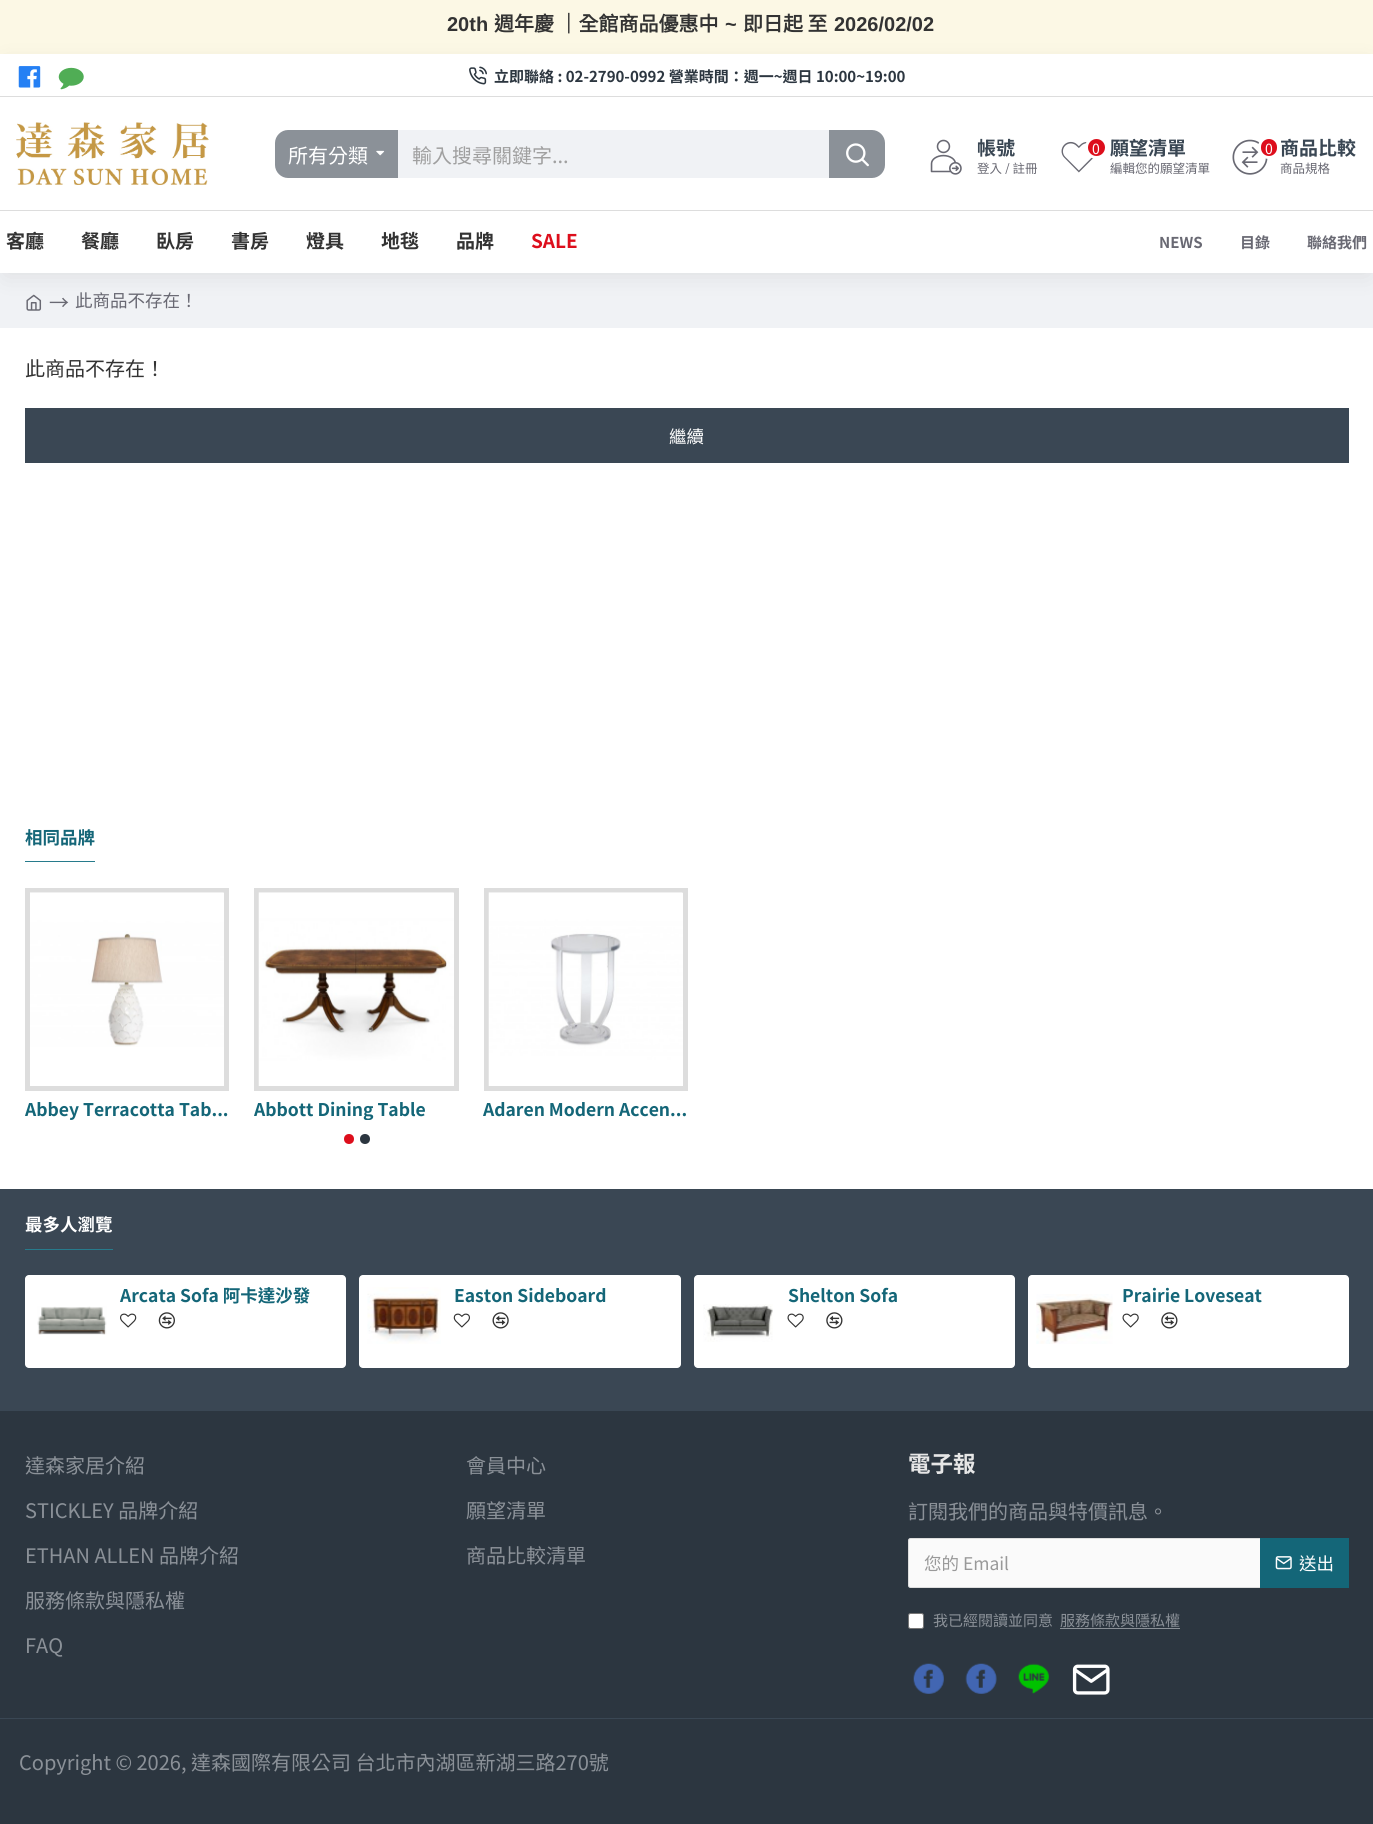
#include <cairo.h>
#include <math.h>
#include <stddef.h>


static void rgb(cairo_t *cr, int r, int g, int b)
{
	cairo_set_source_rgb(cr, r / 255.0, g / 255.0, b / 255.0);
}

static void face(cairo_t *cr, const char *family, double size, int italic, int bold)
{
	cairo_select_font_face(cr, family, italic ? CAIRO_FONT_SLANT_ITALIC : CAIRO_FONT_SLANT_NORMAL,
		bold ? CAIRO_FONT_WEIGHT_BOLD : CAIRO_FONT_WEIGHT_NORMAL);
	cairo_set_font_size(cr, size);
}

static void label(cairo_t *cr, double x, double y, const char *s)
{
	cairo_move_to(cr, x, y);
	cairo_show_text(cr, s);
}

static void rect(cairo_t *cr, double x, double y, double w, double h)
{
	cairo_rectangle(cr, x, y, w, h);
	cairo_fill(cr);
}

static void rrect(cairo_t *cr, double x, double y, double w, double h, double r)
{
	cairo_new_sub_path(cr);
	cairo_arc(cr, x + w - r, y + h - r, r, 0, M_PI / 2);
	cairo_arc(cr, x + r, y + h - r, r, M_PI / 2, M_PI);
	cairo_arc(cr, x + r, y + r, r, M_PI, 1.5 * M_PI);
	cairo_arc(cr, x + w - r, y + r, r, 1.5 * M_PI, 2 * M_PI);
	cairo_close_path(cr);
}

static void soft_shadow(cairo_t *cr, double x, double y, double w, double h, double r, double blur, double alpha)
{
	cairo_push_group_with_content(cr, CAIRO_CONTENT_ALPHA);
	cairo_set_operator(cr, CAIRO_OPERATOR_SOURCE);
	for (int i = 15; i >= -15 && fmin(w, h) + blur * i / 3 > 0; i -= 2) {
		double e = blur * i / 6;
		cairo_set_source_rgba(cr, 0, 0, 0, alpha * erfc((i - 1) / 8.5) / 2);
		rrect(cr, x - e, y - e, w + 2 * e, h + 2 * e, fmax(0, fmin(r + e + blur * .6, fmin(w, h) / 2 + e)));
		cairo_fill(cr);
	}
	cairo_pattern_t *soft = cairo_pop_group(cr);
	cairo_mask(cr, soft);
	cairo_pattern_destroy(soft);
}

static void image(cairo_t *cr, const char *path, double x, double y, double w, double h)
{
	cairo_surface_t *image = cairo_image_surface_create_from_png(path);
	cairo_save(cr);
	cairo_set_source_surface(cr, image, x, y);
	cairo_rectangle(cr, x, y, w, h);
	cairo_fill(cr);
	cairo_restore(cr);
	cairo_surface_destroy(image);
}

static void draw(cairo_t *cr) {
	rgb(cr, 255, 255, 255);
	cairo_paint(cr);
	rgb(cr, 252, 248, 229);
	rect(cr, 0, 0, 1373, 54);
	face(cr, "Liberation Sans", 20, 0, 1);
	rgb(cr, 51, 51, 51);
	label(cr, 447, 31, "20th");
	face(cr, "Noto Sans CJK TC", 20, 0, 1);
	label(cr, 494, 31, "週年慶 ｜全館商品優惠中");
	face(cr, "Liberation Sans", 20, 0, 1);
	label(cr, 725, 31, "~");
	face(cr, "Noto Sans CJK TC", 20, 0, 1);
	label(cr, 743, 31, "即日起 至");
	face(cr, "Liberation Sans", 20, 0, 1);
	label(cr, 834, 31, "2026/02/02");
	rgb(cr, 240, 242, 245);
	rect(cr, 0, 273, 1373, 55);
	image(cr, "image9.png", 26, 294, 16, 17);
	rgb(cr, 0, 0, 0);
	soft_shadow(cr, 6, 66, 1362, 207, 0, 12.5, 0.1);
	rgb(cr, 255, 255, 255);
	rect(cr, 0, 54, 1373, 219);
	image(cr, "image0.png", 18, 66, 23, 22);
	image(cr, "image1.png", 58, 67, 26, 23);
	image(cr, "image2.png", 469, 66, 18, 19);
	face(cr, "Noto Sans TC", 15, 0, 1);
	rgb(cr, 44, 54, 64);
	label(cr, 494, 82, "立即聯絡 : 02-2790-0992 營業時間：週一~週日 10:00~19:00");
	image(cr, "image3.png", 16, 122, 193, 63);
	rgb(cr, 139, 145, 152);
	cairo_new_path(cr);
	cairo_move_to(cr, 288, 130);
	cairo_line_to(cr, 398, 130);
	cairo_line_to(cr, 398, 178);
	cairo_line_to(cr, 288, 178);
	cairo_curve_to(cr, 281, 178, 275, 172, 275, 165);
	cairo_line_to(cr, 275, 143);
	cairo_curve_to(cr, 275, 136, 281, 130, 288, 130);
	cairo_close_path(cr);
	cairo_fill(cr);
	face(cr, "Noto Sans TC", 20, 0, 0);
	rgb(cr, 255, 255, 255);
	label(cr, 288, 163, "所有分類");
	image(cr, "image4.png", 376, 150, 9, 6);
	rgb(cr, 240, 242, 245);
	rect(cr, 398, 130, 431, 48);
	rgb(cr, 160, 160, 160);
	label(cr, 412, 163, "輸入搜尋關鍵字...");
	rgb(cr, 139, 145, 152);
	cairo_new_path(cr);
	cairo_move_to(cr, 829, 130);
	cairo_line_to(cr, 872, 130);
	cairo_curve_to(cr, 879, 130, 885, 136, 885, 143);
	cairo_line_to(cr, 885, 165);
	cairo_curve_to(cr, 885, 172, 879, 178, 872, 178);
	cairo_line_to(cr, 829, 178);
	cairo_close_path(cr);
	cairo_fill(cr);
	image(cr, "image5.png", 846, 143, 23, 24);
	image(cr, "image6.png", 930, 139, 32, 36);
	face(cr, "Noto Sans TC", 19, 0, 1);
	rgb(cr, 58, 71, 84);
	label(cr, 977, 155, "帳號");
	cairo_save(cr);
	cairo_rectangle(cr, 976, 134, 62, 40);
	cairo_clip(cr);
	face(cr, "Noto Sans TC", 12.5, 0, 0);
	rgb(cr, 105, 105, 115);
	label(cr, 977, 173, "登入 / 註冊");
	cairo_restore(cr);
	image(cr, "image7.png", 1061, 141, 33, 32);
	rgb(cr, 221, 14, 28);
	cairo_arc(cr, 1096.5, 147.5, 10, 0, 2 * M_PI);
	cairo_fill_preserve(cr);
	rgb(cr, 255, 255, 255);
	cairo_set_line_width(cr, 3);
	cairo_stroke(cr);
	face(cr, "Noto Sans TC", 14, 0, 0);
	label(cr, 1092, 154, "0");
	face(cr, "Noto Sans TC", 19, 0, 1);
	rgb(cr, 58, 71, 84);
	label(cr, 1110, 155, "願望清單");
	face(cr, "Noto Sans TC", 12.5, 0, 0);
	rgb(cr, 105, 105, 115);
	label(cr, 1110, 173, "編輯您的願望清單");
	image(cr, "image8.png", 1232, 139, 36, 36);
	rgb(cr, 221, 14, 28);
	rrect(cr, 1259.5, 137.5, 19, 20, 9.5);
	cairo_fill_preserve(cr);
	rgb(cr, 255, 255, 255);
	cairo_stroke(cr);
	face(cr, "Noto Sans TC", 14, 0, 0);
	label(cr, 1265, 154, "0");
	face(cr, "Noto Sans TC", 19, 0, 1);
	rgb(cr, 58, 71, 84);
	label(cr, 1280, 155, "商品比較");
	face(cr, "Noto Sans TC", 12.5, 0, 0);
	rgb(cr, 105, 105, 115);
	label(cr, 1280, 173, "商品規格");
	rgb(cr, 221, 221, 221);
	rect(cr, 0, 210, 1373, 1);
	face(cr, "Noto Sans TC", 19, 0, 1);
	rgb(cr, 51, 51, 51);
	label(cr, 6, 248, "客廳");
	label(cr, 81, 248, "餐廳");
	label(cr, 156, 248, "臥房");
	label(cr, 231, 248, "書房");
	label(cr, 306, 248, "燈具");
	label(cr, 381, 248, "地毯");
	label(cr, 456, 248, "品牌");
	rgb(cr, 221, 14, 28);
	label(cr, 531, 248, "SALE");
	face(cr, "Noto Sans TC", 15, 0, 1);
	rgb(cr, 105, 105, 115);
	label(cr, 1159, 248, "NEWS");
	label(cr, 1240, 248, "目錄");
	label(cr, 1307, 248, "聯絡我們");
	rgb(cr, 221, 221, 221);
	rect(cr, 0, 96, 1373, 1);
	face(cr, "Noto Sans TC", 20, 0, 0);
	rgb(cr, 105, 105, 115);
	label(cr, 49, 310, "→");
	face(cr, "Noto Sans TC", 17.5, 0, 0);
	label(cr, 75, 307, "此商品不存在！");
	face(cr, "Noto Sans TC", 20, 0, 0);
	rgb(cr, 51, 51, 51);
	label(cr, 25, 376, "此商品不存在！");
	rgb(cr, 58, 71, 84);
	rect(cr, 25, 408, 1324, 55);
	face(cr, "Noto Sans TC", 17.5, 0, 0);
	rgb(cr, 255, 255, 255);
	label(cr, 669, 443, "繼續");
	rgb(cr, 39, 123, 140);
	rect(cr, 25, 861, 70, 1);
	face(cr, "Noto Sans TC", 17.5, 0, 1);
	rgb(cr, 20, 102, 120);
	label(cr, 25, 844, "相同品牌");
	cairo_rectangle(cr, 27.5, 890.5, 199, 198);
	rgb(cr, 221, 221, 221);
	cairo_set_line_width(cr, 5);
	cairo_stroke(cr);
	image(cr, "image10.png", 30, 892, 194, 155);
	rgb(cr, 20, 102, 120);
	label(cr, 25, 1116, "Abbey Terracotta Tab...");
	cairo_rectangle(cr, 256.5, 890.5, 200, 198);
	rgb(cr, 221, 221, 221);
	cairo_stroke(cr);
	image(cr, "image11.png", 258, 892, 196, 194);
	cairo_save(cr);
	cairo_rectangle(cr, 254, 1098, 172, 22);
	cairo_clip(cr);
	rgb(cr, 20, 102, 120);
	label(cr, 254, 1116, "Abbott Dining Table");
	cairo_restore(cr);
	cairo_rectangle(cr, 486.5, 890.5, 199, 198);
	cairo_stroke(cr);
	image(cr, "image12.png", 488, 892, 195, 194);
	rgb(cr, 20, 102, 120);
	label(cr, 483, 1116, "Adaren Modern Accen...");
	rgb(cr, 221, 14, 28);
	cairo_new_path(cr);
	cairo_arc(cr, 349, 1139, 5, 0, 2 * M_PI);
	cairo_fill(cr);
	rgb(cr, 44, 54, 64);
	cairo_arc(cr, 365, 1139, 5, 0, 2 * M_PI);
	cairo_fill(cr);
	rect(cr, 0, 1411, 1373, 413);
	rgb(cr, 58, 71, 84);
	rect(cr, 0, 1189, 1373, 222);
	rgb(cr, 39, 123, 140);
	rect(cr, 25, 1249, 88, 1);
	rgb(cr, 255, 255, 255);
	label(cr, 25, 1231, "最多人瀏覽");
	rrect(cr, 25, 1275, 321, 93, 4);
	cairo_fill(cr);
	rgb(cr, 20, 102, 120);
	label(cr, 120, 1302, "Arcata Sofa 阿卡達沙發");
	image(cr, "image13.png", 120, 1313, 17, 15);
	image(cr, "image14.png", 158, 1312, 17, 17);
	image(cr, "image15.png", 37, 1306, 70, 29);
	rgb(cr, 255, 255, 255);
	rrect(cr, 359, 1275, 322, 93, 4);
	cairo_fill(cr);
	image(cr, "image16.png", 367, 1287, 74, 57);
	rgb(cr, 20, 102, 120);
	label(cr, 454, 1302, "Easton Sideboard");
	image(cr, "image17.png", 453, 1313, 17, 15);
	image(cr, "image18.png", 492, 1312, 17, 17);
	rgb(cr, 255, 255, 255);
	rrect(cr, 694, 1275, 321, 93, 4);
	cairo_fill(cr);
	rgb(cr, 20, 102, 120);
	label(cr, 788, 1302, "Shelton Sofa");
	image(cr, "image19.png", 787, 1313, 17, 15);
	image(cr, "image20.png", 826, 1312, 17, 17);
	image(cr, "image21.png", 703, 1304, 70, 38);
	rgb(cr, 255, 255, 255);
	rrect(cr, 1028, 1275, 321, 93, 4);
	cairo_fill(cr);
	image(cr, "image22.png", 1036, 1294, 77, 50);
	rgb(cr, 20, 102, 120);
	label(cr, 1122, 1302, "Prairie Loveseat");
	image(cr, "image19.png", 1122, 1313, 17, 15);
	image(cr, "image20.png", 1161, 1312, 17, 17);
	face(cr, "Noto Sans TC", 20, 0, 0);
	rgb(cr, 139, 145, 152);
	label(cr, 25, 1473, "達森家居介紹");
	label(cr, 25, 1518, "STICKLEY 品牌介紹");
	label(cr, 25, 1563, "ETHAN ALLEN 品牌介紹");
	label(cr, 25, 1608, "服務條款與隱私權");
	label(cr, 25, 1653, "FAQ");
	label(cr, 466, 1473, "會員中心");
	label(cr, 466, 1518, "願望清單");
	label(cr, 466, 1563, "商品比較清單");
	face(cr, "Noto Sans TC", 22.5, 0, 1);
	rgb(cr, 230, 230, 230);
	label(cr, 908, 1472, "電子報");
	face(cr, "Noto Sans TC", 20, 0, 0);
	rgb(cr, 139, 145, 152);
	label(cr, 908, 1519, "訂閱我們的商品與特價訊息。");
	rgb(cr, 250, 250, 250);
	rrect(cr, 908.5, 1538.5, 440, 49, 2);
	cairo_fill_preserve(cr);
	rgb(cr, 221, 221, 221);
	cairo_set_line_width(cr, 1);
	cairo_stroke(cr);
	face(cr, "Noto Sans TC", 17.5, 0, 0);
	rgb(cr, 153, 153, 153);
	label(cr, 924, 1570, "您的 Email");
	rgb(cr, 20, 102, 120);
	rect(cr, 1260, 1538, 89, 50);
	image(cr, "image23.png", 1275, 1556, 17, 14);
	rgb(cr, 255, 255, 255);
	label(cr, 1299, 1570, "送出");
	rrect(cr, 908.5, 1613.5, 15, 15, 2);
	cairo_fill_preserve(cr);
	rgb(cr, 118, 118, 118);
	cairo_stroke(cr);
	face(cr, "Noto Sans TC", 15, 0, 0);
	rgb(cr, 139, 145, 152);
	label(cr, 933, 1626, "我已經閱讀並同意");
	label(cr, 1060, 1626, "服務條款與隱私權");
	rect(cr, 1060, 1628, 120, 1);
	image(cr, "image24.png", 913, 1663, 31, 31);
	image(cr, "image25.png", 965, 1663, 32, 31);
	image(cr, "image26.png", 1018, 1663, 31, 31);
	image(cr, "image27.png", 1072, 1664, 38, 31);
	rgb(cr, 58, 71, 84);
	rect(cr, 0, 1718, 1373, 1);
	face(cr, "Noto Sans TC", 20, 0, 0);
	rgb(cr, 139, 145, 152);
	label(cr, 19, 1770, "Copyright © 2026, 達森國際有限公司 台北市內湖區新湖三路270號");
}

int main(void) {
	cairo_surface_t *surface = cairo_image_surface_create(CAIRO_FORMAT_RGB24, 1373, 1824);
	cairo_t *cr = cairo_create(surface);
	cairo_font_options_t *options = cairo_font_options_create();
	cairo_font_options_set_hint_metrics(options, CAIRO_HINT_METRICS_OFF);
	cairo_font_options_set_hint_style(options, CAIRO_HINT_STYLE_NONE);
	cairo_set_font_options(cr, options);
	cairo_set_miter_limit(cr, 4);
	draw(cr);
	cairo_surface_write_to_png(surface, "render.png");
	cairo_font_options_destroy(options);
	cairo_destroy(cr);
	cairo_surface_destroy(surface);
	return 0;
}
